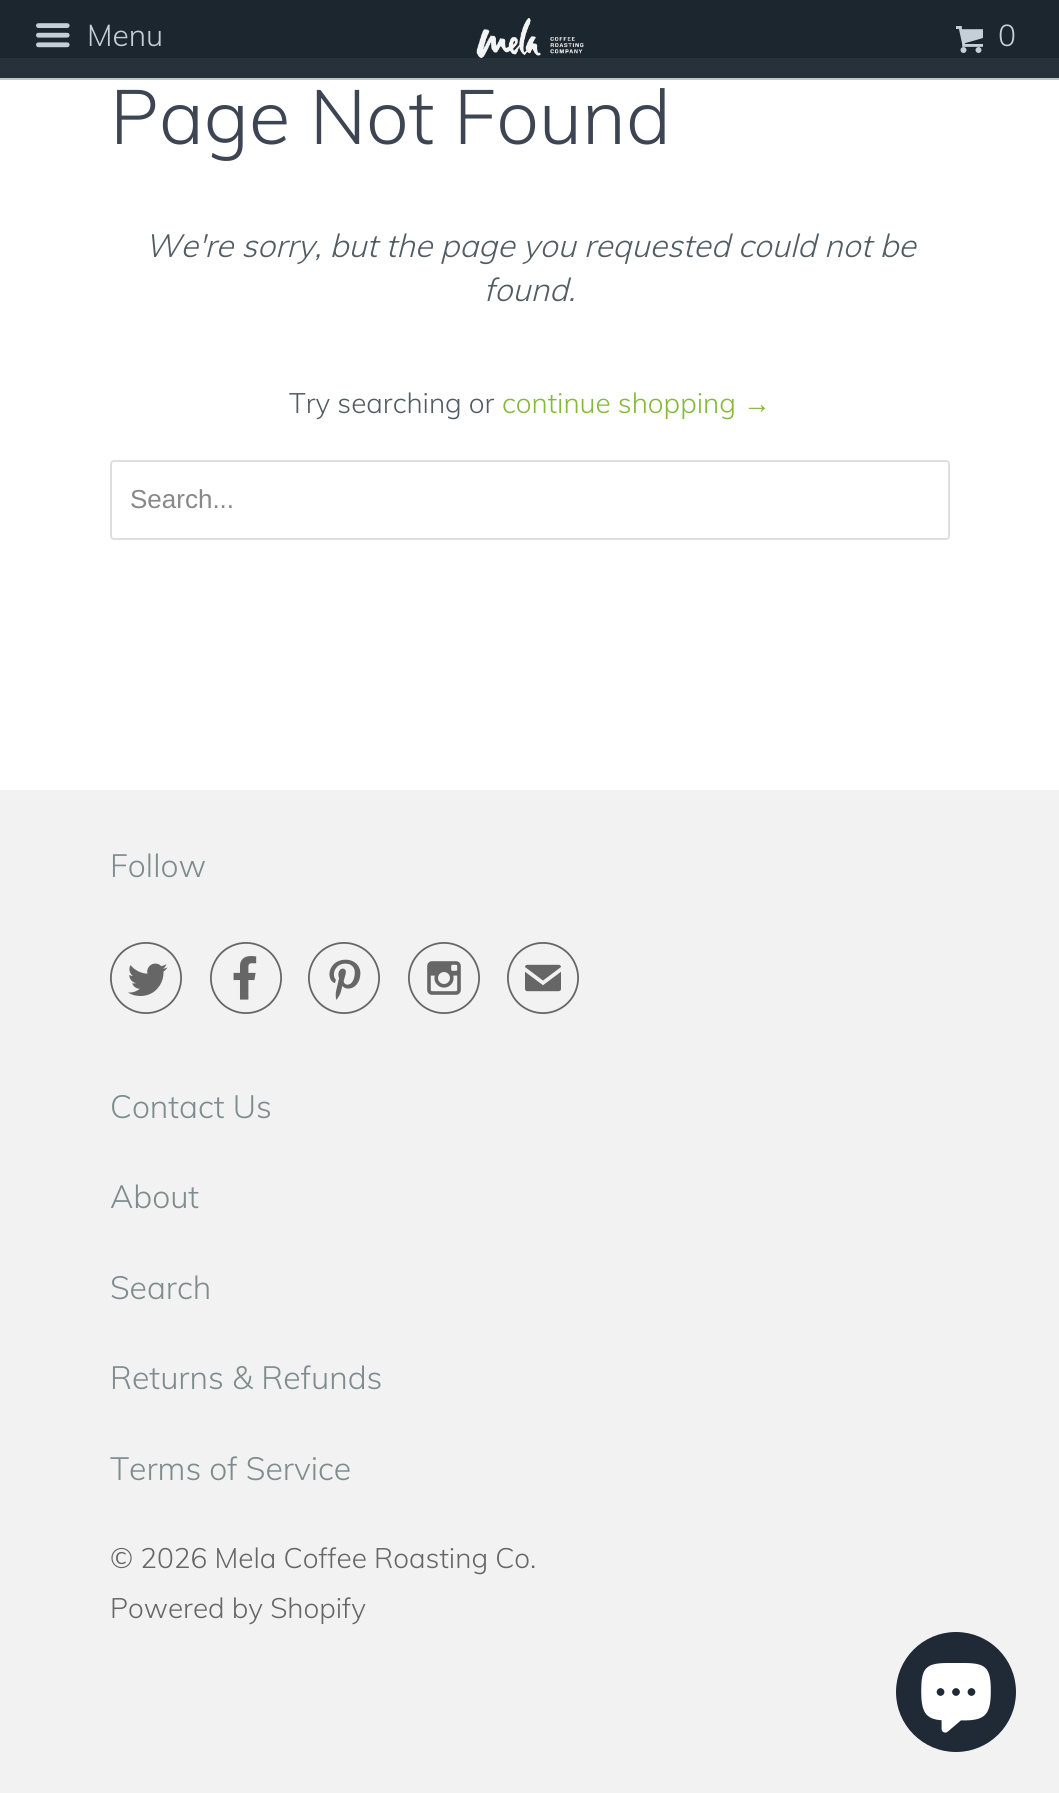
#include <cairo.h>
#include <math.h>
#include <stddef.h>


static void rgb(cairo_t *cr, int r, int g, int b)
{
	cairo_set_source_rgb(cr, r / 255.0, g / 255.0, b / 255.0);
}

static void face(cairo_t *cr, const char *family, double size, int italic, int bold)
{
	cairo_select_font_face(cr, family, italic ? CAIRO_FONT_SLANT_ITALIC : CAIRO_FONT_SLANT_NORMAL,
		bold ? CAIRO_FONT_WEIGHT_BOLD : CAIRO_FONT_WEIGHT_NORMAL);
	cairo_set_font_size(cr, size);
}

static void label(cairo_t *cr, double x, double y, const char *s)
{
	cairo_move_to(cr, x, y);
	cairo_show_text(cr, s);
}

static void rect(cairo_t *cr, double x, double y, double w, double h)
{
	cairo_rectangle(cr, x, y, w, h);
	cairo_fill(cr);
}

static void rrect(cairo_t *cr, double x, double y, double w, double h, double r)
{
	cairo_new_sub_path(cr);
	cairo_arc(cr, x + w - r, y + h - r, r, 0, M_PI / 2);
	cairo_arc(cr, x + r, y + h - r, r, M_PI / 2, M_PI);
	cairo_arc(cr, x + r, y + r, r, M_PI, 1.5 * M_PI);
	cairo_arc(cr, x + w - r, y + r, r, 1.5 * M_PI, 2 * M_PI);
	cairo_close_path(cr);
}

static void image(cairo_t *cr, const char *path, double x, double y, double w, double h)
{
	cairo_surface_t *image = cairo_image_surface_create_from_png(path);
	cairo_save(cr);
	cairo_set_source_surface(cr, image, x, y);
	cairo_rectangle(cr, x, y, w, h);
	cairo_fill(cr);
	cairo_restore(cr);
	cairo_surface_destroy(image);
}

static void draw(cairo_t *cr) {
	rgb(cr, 242, 242, 242);
	cairo_paint(cr);
	rgb(cr, 255, 255, 255);
	rect(cr, 0, 80, 1059, 710);
	rgb(cr, 39, 49, 57);
	rect(cr, 0, 58, 1059, 20);
	rgb(cr, 28, 38, 47);
	rect(cr, 0, 0, 1059, 58);
	rgb(cr, 188, 201, 201);
	rect(cr, 0, 78, 1059, 2);
	image(cr, "image0.png", 36, 23, 34, 25);
	face(cr, "Muli Light", 30, 0, 0);
	rgb(cr, 197, 207, 215);
	label(cr, 87, 46, "Menu");
	image(cr, "image1.png", 476, 18, 108, 41);
	image(cr, "image2.png", 956, 26, 27, 27);
	label(cr, 998, 46, "0");
	face(cr, "Muli Light", 76, 0, 0);
	rgb(cr, 62, 69, 82);
	label(cr, 110, 144, "Page Not Found");
	face(cr, "Muli Light", 32, 1, 0);
	rgb(cr, 82, 93, 99);
	label(cr, 145, 257, "We're sorry, but the page you requested could not be");
	label(cr, 484, 301, "found.");
	face(cr, "Muli Light", 28, 0, 0);
	label(cr, 289, 413, "Try searching or");
	rgb(cr, 133, 185, 58);
	label(cr, 502, 413, "continue shopping");
	face(cr, "Liberation Serif", 28, 0, 0);
	label(cr, 743, 413, "→");
	rrect(cr, 111, 461, 838, 78, 3);
	rgb(cr, 223, 223, 223);
	cairo_stroke(cr);
	face(cr, "Liberation Sans", 26, 0, 0);
	rgb(cr, 136, 136, 136);
	label(cr, 130, 508, "Search...");
	face(cr, "Muli Light", 32, 0, 0);
	rgb(cr, 127, 140, 141);
	label(cr, 110, 877, "Follow");
	image(cr, "image3.png", 110, 942, 72, 72);
	image(cr, "image4.png", 210, 942, 72, 72);
	image(cr, "image5.png", 308, 942, 72, 72);
	image(cr, "image6.png", 408, 942, 72, 72);
	face(cr, "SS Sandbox", 72, 0, 0);
	rgb(cr, 102, 102, 102);
	label(cr, 507, 1014, "✉");
	face(cr, "Muli Light", 32, 0, 0);
	rgb(cr, 127, 140, 141);
	label(cr, 110, 1118, "Contact Us");
	label(cr, 110, 1208, "About");
	label(cr, 110, 1299, "Search");
	label(cr, 110, 1389, "Returns & Refunds");
	label(cr, 110, 1480, "Terms of Service");
	face(cr, "Muli Light", 28, 0, 0);
	rgb(cr, 102, 102, 102);
	label(cr, 110, 1568, "© 2026 Mela Coffee Roasting Co.");
	label(cr, 110, 1618, "Powered by Shopify");
	rgb(cr, 32, 42, 54);
	cairo_new_path(cr);
	cairo_arc(cr, 956, 1692, 60, 0, 2 * M_PI);
	cairo_fill(cr);
	image(cr, "image7.png", 921, 1663, 70, 70);
}

int main(void) {
	cairo_surface_t *surface = cairo_image_surface_create(CAIRO_FORMAT_RGB24, 1059, 1793);
	cairo_t *cr = cairo_create(surface);
	cairo_font_options_t *options = cairo_font_options_create();
	cairo_font_options_set_hint_metrics(options, CAIRO_HINT_METRICS_OFF);
	cairo_font_options_set_hint_style(options, CAIRO_HINT_STYLE_NONE);
	cairo_set_font_options(cr, options);
	cairo_set_miter_limit(cr, 4);
	draw(cr);
	cairo_surface_write_to_png(surface, "render.png");
	cairo_font_options_destroy(options);
	cairo_destroy(cr);
	cairo_surface_destroy(surface);
	return 0;
}
